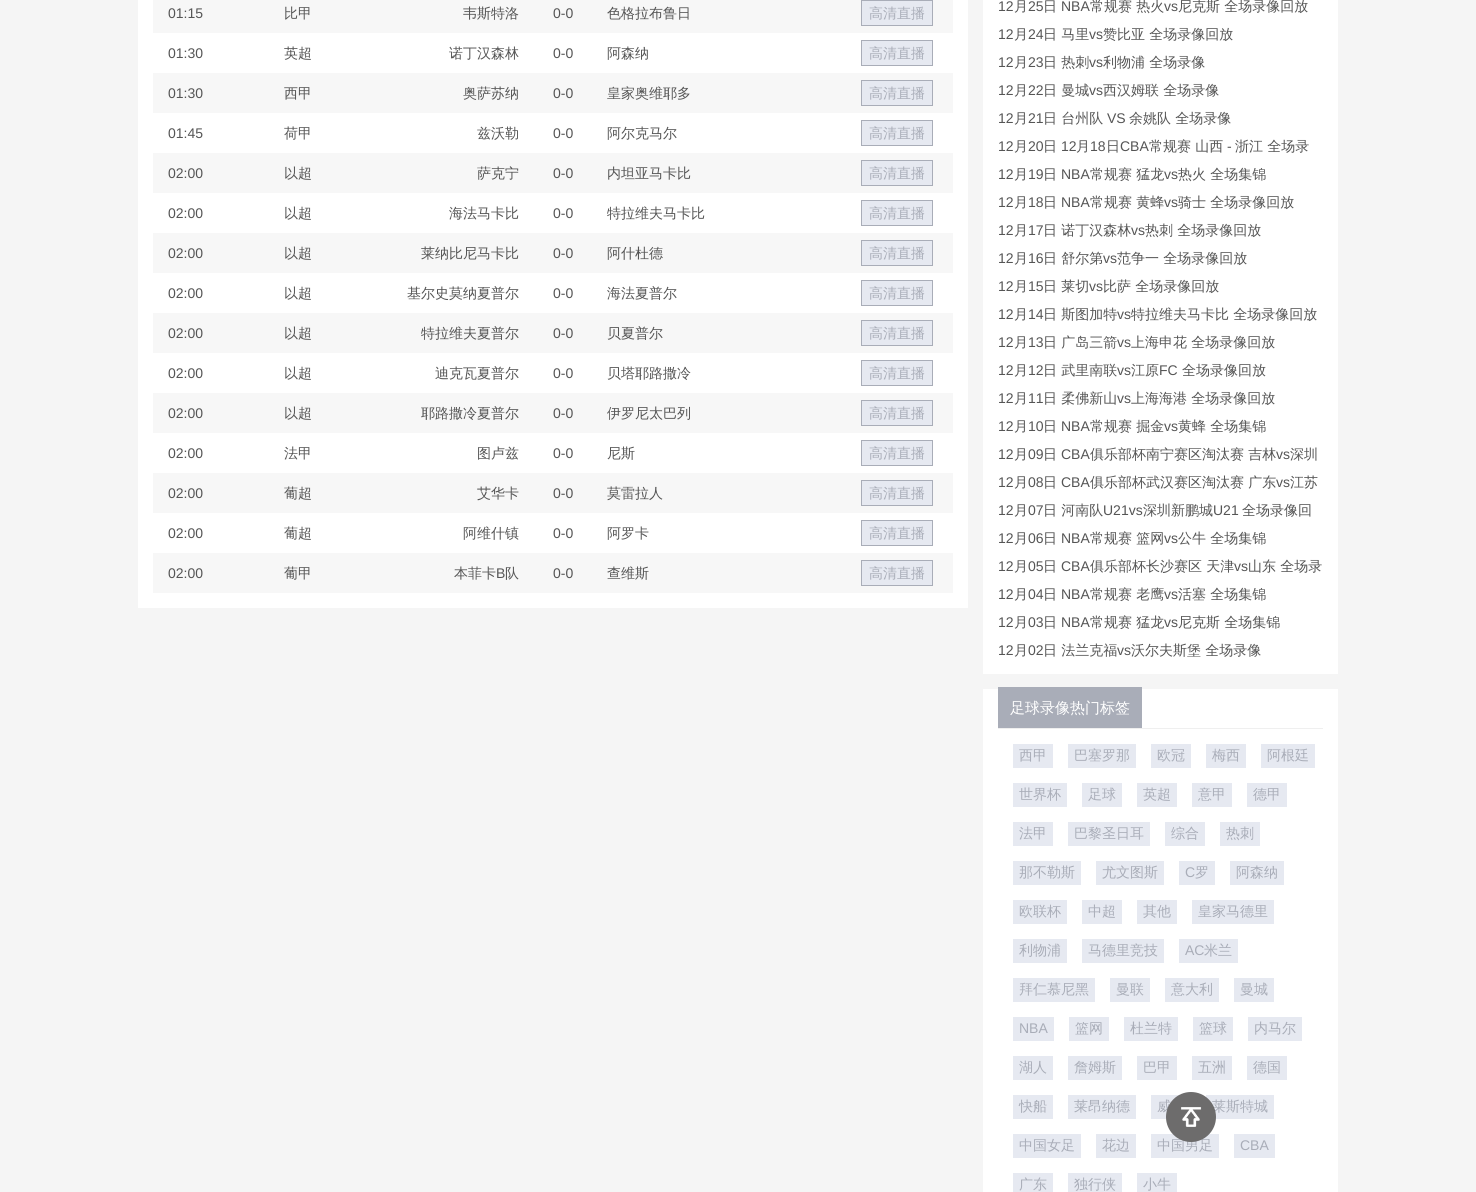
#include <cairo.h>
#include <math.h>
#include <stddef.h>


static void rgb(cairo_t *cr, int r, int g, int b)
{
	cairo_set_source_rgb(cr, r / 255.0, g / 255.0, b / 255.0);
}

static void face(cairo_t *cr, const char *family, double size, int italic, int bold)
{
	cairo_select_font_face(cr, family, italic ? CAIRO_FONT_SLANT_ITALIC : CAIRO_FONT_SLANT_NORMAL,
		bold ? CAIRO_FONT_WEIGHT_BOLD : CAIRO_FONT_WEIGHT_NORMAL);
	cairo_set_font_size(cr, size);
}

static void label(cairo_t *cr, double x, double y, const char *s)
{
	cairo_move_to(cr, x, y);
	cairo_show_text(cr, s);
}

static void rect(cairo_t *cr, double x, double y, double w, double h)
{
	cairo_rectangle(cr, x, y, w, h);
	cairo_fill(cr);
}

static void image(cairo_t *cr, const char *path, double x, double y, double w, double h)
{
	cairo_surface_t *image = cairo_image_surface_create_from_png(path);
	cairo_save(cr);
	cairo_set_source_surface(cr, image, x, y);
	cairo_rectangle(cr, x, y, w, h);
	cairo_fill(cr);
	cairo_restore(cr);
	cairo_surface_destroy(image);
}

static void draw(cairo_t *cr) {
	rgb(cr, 245, 245, 245);
	cairo_paint(cr);
	rgb(cr, 255, 255, 255);
	rect(cr, 138, 0, 830, 608);
	rgb(cr, 247, 247, 247);
	rect(cr, 153, 0, 800, 33);
	face(cr, "Liberation Sans", 14, 0, 0);
	rgb(cr, 85, 85, 85);
	label(cr, 168, 18, "01:15");
	face(cr, "WenQuanYi Zen Hei Medium", 14, 0, 0);
	label(cr, 284, 18, "比甲");
	label(cr, 463, 18, "韦斯特洛");
	face(cr, "Liberation Sans", 14, 0, 0);
	label(cr, 553, 18, "0-0");
	face(cr, "WenQuanYi Zen Hei Medium", 14, 0, 0);
	label(cr, 607, 18, "色格拉布鲁日");
	rgb(cr, 230, 233, 241);
	cairo_rectangle(cr, 861.5, 0.5, 71, 25);
	cairo_fill_preserve(cr);
	rgb(cr, 169, 173, 184);
	cairo_set_line_width(cr, 1);
	cairo_stroke(cr);
	label(cr, 869, 18, "高清直播");
	face(cr, "Liberation Sans", 14, 0, 0);
	rgb(cr, 85, 85, 85);
	label(cr, 168, 58, "01:30");
	face(cr, "WenQuanYi Zen Hei Medium", 14, 0, 0);
	label(cr, 284, 58, "英超");
	label(cr, 449, 58, "诺丁汉森林");
	face(cr, "Liberation Sans", 14, 0, 0);
	label(cr, 553, 58, "0-0");
	face(cr, "WenQuanYi Zen Hei Medium", 14, 0, 0);
	label(cr, 607, 58, "阿森纳");
	rgb(cr, 230, 233, 241);
	cairo_rectangle(cr, 861.5, 40.5, 71, 25);
	cairo_fill_preserve(cr);
	rgb(cr, 169, 173, 184);
	cairo_stroke(cr);
	label(cr, 869, 58, "高清直播");
	rgb(cr, 247, 247, 247);
	rect(cr, 153, 73, 800, 40);
	face(cr, "Liberation Sans", 14, 0, 0);
	rgb(cr, 85, 85, 85);
	label(cr, 168, 98, "01:30");
	face(cr, "WenQuanYi Zen Hei Medium", 14, 0, 0);
	label(cr, 284, 98, "西甲");
	label(cr, 463, 98, "奥萨苏纳");
	face(cr, "Liberation Sans", 14, 0, 0);
	label(cr, 553, 98, "0-0");
	face(cr, "WenQuanYi Zen Hei Medium", 14, 0, 0);
	label(cr, 607, 98, "皇家奥维耶多");
	rgb(cr, 230, 233, 241);
	cairo_rectangle(cr, 861.5, 80.5, 71, 25);
	cairo_fill_preserve(cr);
	rgb(cr, 169, 173, 184);
	cairo_stroke(cr);
	label(cr, 869, 98, "高清直播");
	face(cr, "Liberation Sans", 14, 0, 0);
	rgb(cr, 85, 85, 85);
	label(cr, 168, 138, "01:45");
	face(cr, "WenQuanYi Zen Hei Medium", 14, 0, 0);
	label(cr, 284, 138, "荷甲");
	label(cr, 477, 138, "兹沃勒");
	face(cr, "Liberation Sans", 14, 0, 0);
	label(cr, 553, 138, "0-0");
	face(cr, "WenQuanYi Zen Hei Medium", 14, 0, 0);
	label(cr, 607, 138, "阿尔克马尔");
	rgb(cr, 230, 233, 241);
	cairo_rectangle(cr, 861.5, 120.5, 71, 25);
	cairo_fill_preserve(cr);
	rgb(cr, 169, 173, 184);
	cairo_stroke(cr);
	label(cr, 869, 138, "高清直播");
	rgb(cr, 247, 247, 247);
	rect(cr, 153, 153, 800, 40);
	face(cr, "Liberation Sans", 14, 0, 0);
	rgb(cr, 85, 85, 85);
	label(cr, 168, 178, "02:00");
	face(cr, "WenQuanYi Zen Hei Medium", 14, 0, 0);
	label(cr, 284, 178, "以超");
	label(cr, 477, 178, "萨克宁");
	face(cr, "Liberation Sans", 14, 0, 0);
	label(cr, 553, 178, "0-0");
	face(cr, "WenQuanYi Zen Hei Medium", 14, 0, 0);
	label(cr, 607, 178, "内坦亚马卡比");
	rgb(cr, 230, 233, 241);
	cairo_rectangle(cr, 861.5, 160.5, 71, 25);
	cairo_fill_preserve(cr);
	rgb(cr, 169, 173, 184);
	cairo_stroke(cr);
	label(cr, 869, 178, "高清直播");
	face(cr, "Liberation Sans", 14, 0, 0);
	rgb(cr, 85, 85, 85);
	label(cr, 168, 218, "02:00");
	face(cr, "WenQuanYi Zen Hei Medium", 14, 0, 0);
	label(cr, 284, 218, "以超");
	label(cr, 449, 218, "海法马卡比");
	face(cr, "Liberation Sans", 14, 0, 0);
	label(cr, 553, 218, "0-0");
	face(cr, "WenQuanYi Zen Hei Medium", 14, 0, 0);
	label(cr, 607, 218, "特拉维夫马卡比");
	rgb(cr, 230, 233, 241);
	cairo_rectangle(cr, 861.5, 200.5, 71, 25);
	cairo_fill_preserve(cr);
	rgb(cr, 169, 173, 184);
	cairo_stroke(cr);
	label(cr, 869, 218, "高清直播");
	rgb(cr, 247, 247, 247);
	rect(cr, 153, 233, 800, 40);
	face(cr, "Liberation Sans", 14, 0, 0);
	rgb(cr, 85, 85, 85);
	label(cr, 168, 258, "02:00");
	face(cr, "WenQuanYi Zen Hei Medium", 14, 0, 0);
	label(cr, 284, 258, "以超");
	label(cr, 421, 258, "莱纳比尼马卡比");
	face(cr, "Liberation Sans", 14, 0, 0);
	label(cr, 553, 258, "0-0");
	face(cr, "WenQuanYi Zen Hei Medium", 14, 0, 0);
	label(cr, 607, 258, "阿什杜德");
	rgb(cr, 230, 233, 241);
	cairo_rectangle(cr, 861.5, 240.5, 71, 25);
	cairo_fill_preserve(cr);
	rgb(cr, 169, 173, 184);
	cairo_stroke(cr);
	label(cr, 869, 258, "高清直播");
	face(cr, "Liberation Sans", 14, 0, 0);
	rgb(cr, 85, 85, 85);
	label(cr, 168, 298, "02:00");
	face(cr, "WenQuanYi Zen Hei Medium", 14, 0, 0);
	label(cr, 284, 298, "以超");
	label(cr, 407, 298, "基尔史莫纳夏普尔");
	face(cr, "Liberation Sans", 14, 0, 0);
	label(cr, 553, 298, "0-0");
	face(cr, "WenQuanYi Zen Hei Medium", 14, 0, 0);
	label(cr, 607, 298, "海法夏普尔");
	rgb(cr, 230, 233, 241);
	cairo_rectangle(cr, 861.5, 280.5, 71, 25);
	cairo_fill_preserve(cr);
	rgb(cr, 169, 173, 184);
	cairo_stroke(cr);
	label(cr, 869, 298, "高清直播");
	rgb(cr, 247, 247, 247);
	rect(cr, 153, 313, 800, 40);
	face(cr, "Liberation Sans", 14, 0, 0);
	rgb(cr, 85, 85, 85);
	label(cr, 168, 338, "02:00");
	face(cr, "WenQuanYi Zen Hei Medium", 14, 0, 0);
	label(cr, 284, 338, "以超");
	label(cr, 421, 338, "特拉维夫夏普尔");
	face(cr, "Liberation Sans", 14, 0, 0);
	label(cr, 553, 338, "0-0");
	face(cr, "WenQuanYi Zen Hei Medium", 14, 0, 0);
	label(cr, 607, 338, "贝夏普尔");
	rgb(cr, 230, 233, 241);
	cairo_rectangle(cr, 861.5, 320.5, 71, 25);
	cairo_fill_preserve(cr);
	rgb(cr, 169, 173, 184);
	cairo_stroke(cr);
	label(cr, 869, 338, "高清直播");
	face(cr, "Liberation Sans", 14, 0, 0);
	rgb(cr, 85, 85, 85);
	label(cr, 168, 378, "02:00");
	face(cr, "WenQuanYi Zen Hei Medium", 14, 0, 0);
	label(cr, 284, 378, "以超");
	label(cr, 435, 378, "迪克瓦夏普尔");
	face(cr, "Liberation Sans", 14, 0, 0);
	label(cr, 553, 378, "0-0");
	face(cr, "WenQuanYi Zen Hei Medium", 14, 0, 0);
	label(cr, 607, 378, "贝塔耶路撒冷");
	rgb(cr, 230, 233, 241);
	cairo_rectangle(cr, 861.5, 360.5, 71, 25);
	cairo_fill_preserve(cr);
	rgb(cr, 169, 173, 184);
	cairo_stroke(cr);
	label(cr, 869, 378, "高清直播");
	rgb(cr, 247, 247, 247);
	rect(cr, 153, 393, 800, 40);
	face(cr, "Liberation Sans", 14, 0, 0);
	rgb(cr, 85, 85, 85);
	label(cr, 168, 418, "02:00");
	face(cr, "WenQuanYi Zen Hei Medium", 14, 0, 0);
	label(cr, 284, 418, "以超");
	label(cr, 421, 418, "耶路撒冷夏普尔");
	face(cr, "Liberation Sans", 14, 0, 0);
	label(cr, 553, 418, "0-0");
	face(cr, "WenQuanYi Zen Hei Medium", 14, 0, 0);
	label(cr, 607, 418, "伊罗尼太巴列");
	rgb(cr, 230, 233, 241);
	cairo_rectangle(cr, 861.5, 400.5, 71, 25);
	cairo_fill_preserve(cr);
	rgb(cr, 169, 173, 184);
	cairo_stroke(cr);
	label(cr, 869, 418, "高清直播");
	face(cr, "Liberation Sans", 14, 0, 0);
	rgb(cr, 85, 85, 85);
	label(cr, 168, 458, "02:00");
	face(cr, "WenQuanYi Zen Hei Medium", 14, 0, 0);
	label(cr, 284, 458, "法甲");
	label(cr, 477, 458, "图卢兹");
	face(cr, "Liberation Sans", 14, 0, 0);
	label(cr, 553, 458, "0-0");
	face(cr, "WenQuanYi Zen Hei Medium", 14, 0, 0);
	label(cr, 607, 458, "尼斯");
	rgb(cr, 230, 233, 241);
	cairo_rectangle(cr, 861.5, 440.5, 71, 25);
	cairo_fill_preserve(cr);
	rgb(cr, 169, 173, 184);
	cairo_stroke(cr);
	label(cr, 869, 458, "高清直播");
	rgb(cr, 247, 247, 247);
	rect(cr, 153, 473, 800, 40);
	face(cr, "Liberation Sans", 14, 0, 0);
	rgb(cr, 85, 85, 85);
	label(cr, 168, 498, "02:00");
	face(cr, "WenQuanYi Zen Hei Medium", 14, 0, 0);
	label(cr, 284, 498, "葡超");
	label(cr, 477, 498, "艾华卡");
	face(cr, "Liberation Sans", 14, 0, 0);
	label(cr, 553, 498, "0-0");
	face(cr, "WenQuanYi Zen Hei Medium", 14, 0, 0);
	label(cr, 607, 498, "莫雷拉人");
	rgb(cr, 230, 233, 241);
	cairo_rectangle(cr, 861.5, 480.5, 71, 25);
	cairo_fill_preserve(cr);
	rgb(cr, 169, 173, 184);
	cairo_stroke(cr);
	label(cr, 869, 498, "高清直播");
	face(cr, "Liberation Sans", 14, 0, 0);
	rgb(cr, 85, 85, 85);
	label(cr, 168, 538, "02:00");
	face(cr, "WenQuanYi Zen Hei Medium", 14, 0, 0);
	label(cr, 284, 538, "葡超");
	label(cr, 463, 538, "阿维什镇");
	face(cr, "Liberation Sans", 14, 0, 0);
	label(cr, 553, 538, "0-0");
	face(cr, "WenQuanYi Zen Hei Medium", 14, 0, 0);
	label(cr, 607, 538, "阿罗卡");
	rgb(cr, 230, 233, 241);
	cairo_rectangle(cr, 861.5, 520.5, 71, 25);
	cairo_fill_preserve(cr);
	rgb(cr, 169, 173, 184);
	cairo_stroke(cr);
	label(cr, 869, 538, "高清直播");
	rgb(cr, 247, 247, 247);
	rect(cr, 153, 553, 800, 40);
	face(cr, "Liberation Sans", 14, 0, 0);
	rgb(cr, 85, 85, 85);
	label(cr, 168, 578, "02:00");
	face(cr, "WenQuanYi Zen Hei Medium", 14, 0, 0);
	label(cr, 284, 578, "葡甲");
	label(cr, 454, 578, "本菲卡");
	face(cr, "Liberation Sans", 14, 0, 0);
	label(cr, 496, 578, "B");
	face(cr, "WenQuanYi Zen Hei Medium", 14, 0, 0);
	label(cr, 505, 578, "队");
	face(cr, "Liberation Sans", 14, 0, 0);
	label(cr, 553, 578, "0-0");
	face(cr, "WenQuanYi Zen Hei Medium", 14, 0, 0);
	label(cr, 607, 578, "查维斯");
	rgb(cr, 230, 233, 241);
	cairo_rectangle(cr, 861.5, 560.5, 71, 25);
	cairo_fill_preserve(cr);
	rgb(cr, 169, 173, 184);
	cairo_stroke(cr);
	label(cr, 869, 578, "高清直播");
	rgb(cr, 255, 255, 255);
	rect(cr, 983, 0, 355, 674);
	face(cr, "Liberation Sans", 14, 0, 0);
	rgb(cr, 85, 85, 85);
	label(cr, 998, 11, "12");
	face(cr, "WenQuanYi Zen Hei Medium", 14, 0, 0);
	label(cr, 1014, 11, "月");
	face(cr, "Liberation Sans", 14, 0, 0);
	label(cr, 1028, 11, "25");
	face(cr, "WenQuanYi Zen Hei Medium", 14, 0, 0);
	label(cr, 1043, 11, "日");
	face(cr, "Liberation Sans", 14, 0, 0);
	label(cr, 1061, 11, "NBA");
	face(cr, "WenQuanYi Zen Hei Medium", 14, 0, 0);
	label(cr, 1090, 11, "常规赛 热火");
	face(cr, "Liberation Sans", 14, 0, 0);
	label(cr, 1164, 11, "vs");
	face(cr, "WenQuanYi Zen Hei Medium", 14, 0, 0);
	label(cr, 1178, 11, "尼克斯 全场录像回放");
	face(cr, "Liberation Sans", 14, 0, 0);
	label(cr, 998, 39, "12");
	face(cr, "WenQuanYi Zen Hei Medium", 14, 0, 0);
	label(cr, 1014, 39, "月");
	face(cr, "Liberation Sans", 14, 0, 0);
	label(cr, 1028, 39, "24");
	face(cr, "WenQuanYi Zen Hei Medium", 14, 0, 0);
	label(cr, 1043, 39, "日 马里");
	face(cr, "Liberation Sans", 14, 0, 0);
	label(cr, 1089, 39, "vs");
	face(cr, "WenQuanYi Zen Hei Medium", 14, 0, 0);
	label(cr, 1103, 39, "赞比亚 全场录像回放");
	face(cr, "Liberation Sans", 14, 0, 0);
	label(cr, 998, 67, "12");
	face(cr, "WenQuanYi Zen Hei Medium", 14, 0, 0);
	label(cr, 1014, 67, "月");
	face(cr, "Liberation Sans", 14, 0, 0);
	label(cr, 1028, 67, "23");
	face(cr, "WenQuanYi Zen Hei Medium", 14, 0, 0);
	label(cr, 1043, 67, "日 热刺");
	face(cr, "Liberation Sans", 14, 0, 0);
	label(cr, 1089, 67, "vs");
	face(cr, "WenQuanYi Zen Hei Medium", 14, 0, 0);
	label(cr, 1103, 67, "利物浦 全场录像");
	face(cr, "Liberation Sans", 14, 0, 0);
	label(cr, 998, 95, "12");
	face(cr, "WenQuanYi Zen Hei Medium", 14, 0, 0);
	label(cr, 1014, 95, "月");
	face(cr, "Liberation Sans", 14, 0, 0);
	label(cr, 1028, 95, "22");
	face(cr, "WenQuanYi Zen Hei Medium", 14, 0, 0);
	label(cr, 1043, 95, "日 曼城");
	face(cr, "Liberation Sans", 14, 0, 0);
	label(cr, 1089, 95, "vs");
	face(cr, "WenQuanYi Zen Hei Medium", 14, 0, 0);
	label(cr, 1103, 95, "西汉姆联 全场录像");
	face(cr, "Liberation Sans", 14, 0, 0);
	label(cr, 998, 123, "12");
	face(cr, "WenQuanYi Zen Hei Medium", 14, 0, 0);
	label(cr, 1014, 123, "月");
	face(cr, "Liberation Sans", 14, 0, 0);
	label(cr, 1028, 123, "21");
	face(cr, "WenQuanYi Zen Hei Medium", 14, 0, 0);
	label(cr, 1043, 123, "日 台州队");
	face(cr, "Liberation Sans", 14, 0, 0);
	label(cr, 1107, 123, "VS");
	face(cr, "WenQuanYi Zen Hei Medium", 14, 0, 0);
	label(cr, 1129, 123, "余姚队 全场录像");
	face(cr, "Liberation Sans", 14, 0, 0);
	label(cr, 998, 151, "12");
	face(cr, "WenQuanYi Zen Hei Medium", 14, 0, 0);
	label(cr, 1014, 151, "月");
	face(cr, "Liberation Sans", 14, 0, 0);
	label(cr, 1028, 151, "20");
	face(cr, "WenQuanYi Zen Hei Medium", 14, 0, 0);
	label(cr, 1043, 151, "日");
	face(cr, "Liberation Sans", 14, 0, 0);
	label(cr, 1061, 151, "12");
	face(cr, "WenQuanYi Zen Hei Medium", 14, 0, 0);
	label(cr, 1076, 151, "月");
	face(cr, "Liberation Sans", 14, 0, 0);
	label(cr, 1090, 151, "18");
	face(cr, "WenQuanYi Zen Hei Medium", 14, 0, 0);
	label(cr, 1106, 151, "日");
	face(cr, "Liberation Sans", 14, 0, 0);
	label(cr, 1120, 151, "CBA");
	face(cr, "WenQuanYi Zen Hei Medium", 14, 0, 0);
	label(cr, 1149, 151, "常规赛 山西");
	face(cr, "Liberation Sans", 14, 0, 0);
	label(cr, 1227, 151, "-");
	face(cr, "WenQuanYi Zen Hei Medium", 14, 0, 0);
	label(cr, 1235, 151, "浙江 全场录");
	face(cr, "Liberation Sans", 14, 0, 0);
	label(cr, 998, 179, "12");
	face(cr, "WenQuanYi Zen Hei Medium", 14, 0, 0);
	label(cr, 1014, 179, "月");
	face(cr, "Liberation Sans", 14, 0, 0);
	label(cr, 1028, 179, "19");
	face(cr, "WenQuanYi Zen Hei Medium", 14, 0, 0);
	label(cr, 1043, 179, "日");
	face(cr, "Liberation Sans", 14, 0, 0);
	label(cr, 1061, 179, "NBA");
	face(cr, "WenQuanYi Zen Hei Medium", 14, 0, 0);
	label(cr, 1090, 179, "常规赛 猛龙");
	face(cr, "Liberation Sans", 14, 0, 0);
	label(cr, 1164, 179, "vs");
	face(cr, "WenQuanYi Zen Hei Medium", 14, 0, 0);
	label(cr, 1178, 179, "热火 全场集锦");
	face(cr, "Liberation Sans", 14, 0, 0);
	label(cr, 998, 207, "12");
	face(cr, "WenQuanYi Zen Hei Medium", 14, 0, 0);
	label(cr, 1014, 207, "月");
	face(cr, "Liberation Sans", 14, 0, 0);
	label(cr, 1028, 207, "18");
	face(cr, "WenQuanYi Zen Hei Medium", 14, 0, 0);
	label(cr, 1043, 207, "日");
	face(cr, "Liberation Sans", 14, 0, 0);
	label(cr, 1061, 207, "NBA");
	face(cr, "WenQuanYi Zen Hei Medium", 14, 0, 0);
	label(cr, 1090, 207, "常规赛 黄蜂");
	face(cr, "Liberation Sans", 14, 0, 0);
	label(cr, 1164, 207, "vs");
	face(cr, "WenQuanYi Zen Hei Medium", 14, 0, 0);
	label(cr, 1178, 207, "骑士 全场录像回放");
	face(cr, "Liberation Sans", 14, 0, 0);
	label(cr, 998, 235, "12");
	face(cr, "WenQuanYi Zen Hei Medium", 14, 0, 0);
	label(cr, 1014, 235, "月");
	face(cr, "Liberation Sans", 14, 0, 0);
	label(cr, 1028, 235, "17");
	face(cr, "WenQuanYi Zen Hei Medium", 14, 0, 0);
	label(cr, 1043, 235, "日 诺丁汉森林");
	face(cr, "Liberation Sans", 14, 0, 0);
	label(cr, 1131, 235, "vs");
	face(cr, "WenQuanYi Zen Hei Medium", 14, 0, 0);
	label(cr, 1145, 235, "热刺 全场录像回放");
	face(cr, "Liberation Sans", 14, 0, 0);
	label(cr, 998, 263, "12");
	face(cr, "WenQuanYi Zen Hei Medium", 14, 0, 0);
	label(cr, 1014, 263, "月");
	face(cr, "Liberation Sans", 14, 0, 0);
	label(cr, 1028, 263, "16");
	face(cr, "WenQuanYi Zen Hei Medium", 14, 0, 0);
	label(cr, 1043, 263, "日 舒尔第");
	face(cr, "Liberation Sans", 14, 0, 0);
	label(cr, 1103, 263, "vs");
	face(cr, "WenQuanYi Zen Hei Medium", 14, 0, 0);
	label(cr, 1117, 263, "范争一 全场录像回放");
	face(cr, "Liberation Sans", 14, 0, 0);
	label(cr, 998, 291, "12");
	face(cr, "WenQuanYi Zen Hei Medium", 14, 0, 0);
	label(cr, 1014, 291, "月");
	face(cr, "Liberation Sans", 14, 0, 0);
	label(cr, 1028, 291, "15");
	face(cr, "WenQuanYi Zen Hei Medium", 14, 0, 0);
	label(cr, 1043, 291, "日 莱切");
	face(cr, "Liberation Sans", 14, 0, 0);
	label(cr, 1089, 291, "vs");
	face(cr, "WenQuanYi Zen Hei Medium", 14, 0, 0);
	label(cr, 1103, 291, "比萨 全场录像回放");
	face(cr, "Liberation Sans", 14, 0, 0);
	label(cr, 998, 319, "12");
	face(cr, "WenQuanYi Zen Hei Medium", 14, 0, 0);
	label(cr, 1014, 319, "月");
	face(cr, "Liberation Sans", 14, 0, 0);
	label(cr, 1028, 319, "14");
	face(cr, "WenQuanYi Zen Hei Medium", 14, 0, 0);
	label(cr, 1043, 319, "日 斯图加特");
	face(cr, "Liberation Sans", 14, 0, 0);
	label(cr, 1117, 319, "vs");
	face(cr, "WenQuanYi Zen Hei Medium", 14, 0, 0);
	label(cr, 1131, 319, "特拉维夫马卡比 全场录像回放");
	face(cr, "Liberation Sans", 14, 0, 0);
	label(cr, 998, 347, "12");
	face(cr, "WenQuanYi Zen Hei Medium", 14, 0, 0);
	label(cr, 1014, 347, "月");
	face(cr, "Liberation Sans", 14, 0, 0);
	label(cr, 1028, 347, "13");
	face(cr, "WenQuanYi Zen Hei Medium", 14, 0, 0);
	label(cr, 1043, 347, "日 广岛三箭");
	face(cr, "Liberation Sans", 14, 0, 0);
	label(cr, 1117, 347, "vs");
	face(cr, "WenQuanYi Zen Hei Medium", 14, 0, 0);
	label(cr, 1131, 347, "上海申花 全场录像回放");
	face(cr, "Liberation Sans", 14, 0, 0);
	label(cr, 998, 375, "12");
	face(cr, "WenQuanYi Zen Hei Medium", 14, 0, 0);
	label(cr, 1014, 375, "月");
	face(cr, "Liberation Sans", 14, 0, 0);
	label(cr, 1028, 375, "12");
	face(cr, "WenQuanYi Zen Hei Medium", 14, 0, 0);
	label(cr, 1043, 375, "日 武里南联");
	face(cr, "Liberation Sans", 14, 0, 0);
	label(cr, 1117, 375, "vs");
	face(cr, "WenQuanYi Zen Hei Medium", 14, 0, 0);
	label(cr, 1131, 375, "江原");
	face(cr, "Liberation Sans", 14, 0, 0);
	label(cr, 1159, 375, "FC");
	face(cr, "WenQuanYi Zen Hei Medium", 14, 0, 0);
	label(cr, 1182, 375, "全场录像回放");
	face(cr, "Liberation Sans", 14, 0, 0);
	label(cr, 998, 403, "12");
	face(cr, "WenQuanYi Zen Hei Medium", 14, 0, 0);
	label(cr, 1014, 403, "月");
	face(cr, "Liberation Sans", 14, 0, 0);
	label(cr, 1028, 403, "11");
	face(cr, "WenQuanYi Zen Hei Medium", 14, 0, 0);
	label(cr, 1043, 403, "日 柔佛新山");
	face(cr, "Liberation Sans", 14, 0, 0);
	label(cr, 1117, 403, "vs");
	face(cr, "WenQuanYi Zen Hei Medium", 14, 0, 0);
	label(cr, 1131, 403, "上海海港 全场录像回放");
	face(cr, "Liberation Sans", 14, 0, 0);
	label(cr, 998, 431, "12");
	face(cr, "WenQuanYi Zen Hei Medium", 14, 0, 0);
	label(cr, 1014, 431, "月");
	face(cr, "Liberation Sans", 14, 0, 0);
	label(cr, 1028, 431, "10");
	face(cr, "WenQuanYi Zen Hei Medium", 14, 0, 0);
	label(cr, 1043, 431, "日");
	face(cr, "Liberation Sans", 14, 0, 0);
	label(cr, 1061, 431, "NBA");
	face(cr, "WenQuanYi Zen Hei Medium", 14, 0, 0);
	label(cr, 1090, 431, "常规赛 掘金");
	face(cr, "Liberation Sans", 14, 0, 0);
	label(cr, 1164, 431, "vs");
	face(cr, "WenQuanYi Zen Hei Medium", 14, 0, 0);
	label(cr, 1178, 431, "黄蜂 全场集锦");
	face(cr, "Liberation Sans", 14, 0, 0);
	label(cr, 998, 459, "12");
	face(cr, "WenQuanYi Zen Hei Medium", 14, 0, 0);
	label(cr, 1014, 459, "月");
	face(cr, "Liberation Sans", 14, 0, 0);
	label(cr, 1028, 459, "09");
	face(cr, "WenQuanYi Zen Hei Medium", 14, 0, 0);
	label(cr, 1043, 459, "日");
	face(cr, "Liberation Sans", 14, 0, 0);
	label(cr, 1061, 459, "CBA");
	face(cr, "WenQuanYi Zen Hei Medium", 14, 0, 0);
	label(cr, 1090, 459, "俱乐部杯南宁赛区淘汰赛 吉林");
	face(cr, "Liberation Sans", 14, 0, 0);
	label(cr, 1276, 459, "vs");
	face(cr, "WenQuanYi Zen Hei Medium", 14, 0, 0);
	label(cr, 1290, 459, "深圳");
	face(cr, "Liberation Sans", 14, 0, 0);
	label(cr, 998, 487, "12");
	face(cr, "WenQuanYi Zen Hei Medium", 14, 0, 0);
	label(cr, 1014, 487, "月");
	face(cr, "Liberation Sans", 14, 0, 0);
	label(cr, 1028, 487, "08");
	face(cr, "WenQuanYi Zen Hei Medium", 14, 0, 0);
	label(cr, 1043, 487, "日");
	face(cr, "Liberation Sans", 14, 0, 0);
	label(cr, 1061, 487, "CBA");
	face(cr, "WenQuanYi Zen Hei Medium", 14, 0, 0);
	label(cr, 1090, 487, "俱乐部杯武汉赛区淘汰赛 广东");
	face(cr, "Liberation Sans", 14, 0, 0);
	label(cr, 1276, 487, "vs");
	face(cr, "WenQuanYi Zen Hei Medium", 14, 0, 0);
	label(cr, 1290, 487, "江苏");
	face(cr, "Liberation Sans", 14, 0, 0);
	label(cr, 998, 515, "12");
	face(cr, "WenQuanYi Zen Hei Medium", 14, 0, 0);
	label(cr, 1014, 515, "月");
	face(cr, "Liberation Sans", 14, 0, 0);
	label(cr, 1028, 515, "07");
	face(cr, "WenQuanYi Zen Hei Medium", 14, 0, 0);
	label(cr, 1043, 515, "日 河南队");
	face(cr, "Liberation Sans", 14, 0, 0);
	label(cr, 1103, 515, "U21vs");
	face(cr, "WenQuanYi Zen Hei Medium", 14, 0, 0);
	label(cr, 1143, 515, "深圳新鹏城");
	face(cr, "Liberation Sans", 14, 0, 0);
	label(cr, 1213, 515, "U21");
	face(cr, "WenQuanYi Zen Hei Medium", 14, 0, 0);
	label(cr, 1242, 515, "全场录像回");
	face(cr, "Liberation Sans", 14, 0, 0);
	label(cr, 998, 543, "12");
	face(cr, "WenQuanYi Zen Hei Medium", 14, 0, 0);
	label(cr, 1014, 543, "月");
	face(cr, "Liberation Sans", 14, 0, 0);
	label(cr, 1028, 543, "06");
	face(cr, "WenQuanYi Zen Hei Medium", 14, 0, 0);
	label(cr, 1043, 543, "日");
	face(cr, "Liberation Sans", 14, 0, 0);
	label(cr, 1061, 543, "NBA");
	face(cr, "WenQuanYi Zen Hei Medium", 14, 0, 0);
	label(cr, 1090, 543, "常规赛 篮网");
	face(cr, "Liberation Sans", 14, 0, 0);
	label(cr, 1164, 543, "vs");
	face(cr, "WenQuanYi Zen Hei Medium", 14, 0, 0);
	label(cr, 1178, 543, "公牛 全场集锦");
	face(cr, "Liberation Sans", 14, 0, 0);
	label(cr, 998, 571, "12");
	face(cr, "WenQuanYi Zen Hei Medium", 14, 0, 0);
	label(cr, 1014, 571, "月");
	face(cr, "Liberation Sans", 14, 0, 0);
	label(cr, 1028, 571, "05");
	face(cr, "WenQuanYi Zen Hei Medium", 14, 0, 0);
	label(cr, 1043, 571, "日");
	face(cr, "Liberation Sans", 14, 0, 0);
	label(cr, 1061, 571, "CBA");
	face(cr, "WenQuanYi Zen Hei Medium", 14, 0, 0);
	label(cr, 1090, 571, "俱乐部杯长沙赛区 天津");
	face(cr, "Liberation Sans", 14, 0, 0);
	label(cr, 1234, 571, "vs");
	face(cr, "WenQuanYi Zen Hei Medium", 14, 0, 0);
	label(cr, 1248, 571, "山东 全场录");
	face(cr, "Liberation Sans", 14, 0, 0);
	label(cr, 998, 599, "12");
	face(cr, "WenQuanYi Zen Hei Medium", 14, 0, 0);
	label(cr, 1014, 599, "月");
	face(cr, "Liberation Sans", 14, 0, 0);
	label(cr, 1028, 599, "04");
	face(cr, "WenQuanYi Zen Hei Medium", 14, 0, 0);
	label(cr, 1043, 599, "日");
	face(cr, "Liberation Sans", 14, 0, 0);
	label(cr, 1061, 599, "NBA");
	face(cr, "WenQuanYi Zen Hei Medium", 14, 0, 0);
	label(cr, 1090, 599, "常规赛 老鹰");
	face(cr, "Liberation Sans", 14, 0, 0);
	label(cr, 1164, 599, "vs");
	face(cr, "WenQuanYi Zen Hei Medium", 14, 0, 0);
	label(cr, 1178, 599, "活塞 全场集锦");
	face(cr, "Liberation Sans", 14, 0, 0);
	label(cr, 998, 627, "12");
	face(cr, "WenQuanYi Zen Hei Medium", 14, 0, 0);
	label(cr, 1014, 627, "月");
	face(cr, "Liberation Sans", 14, 0, 0);
	label(cr, 1028, 627, "03");
	face(cr, "WenQuanYi Zen Hei Medium", 14, 0, 0);
	label(cr, 1043, 627, "日");
	face(cr, "Liberation Sans", 14, 0, 0);
	label(cr, 1061, 627, "NBA");
	face(cr, "WenQuanYi Zen Hei Medium", 14, 0, 0);
	label(cr, 1090, 627, "常规赛 猛龙");
	face(cr, "Liberation Sans", 14, 0, 0);
	label(cr, 1164, 627, "vs");
	face(cr, "WenQuanYi Zen Hei Medium", 14, 0, 0);
	label(cr, 1178, 627, "尼克斯 全场集锦");
	face(cr, "Liberation Sans", 14, 0, 0);
	label(cr, 998, 655, "12");
	face(cr, "WenQuanYi Zen Hei Medium", 14, 0, 0);
	label(cr, 1014, 655, "月");
	face(cr, "Liberation Sans", 14, 0, 0);
	label(cr, 1028, 655, "02");
	face(cr, "WenQuanYi Zen Hei Medium", 14, 0, 0);
	label(cr, 1043, 655, "日 法兰克福");
	face(cr, "Liberation Sans", 14, 0, 0);
	label(cr, 1117, 655, "vs");
	face(cr, "WenQuanYi Zen Hei Medium", 14, 0, 0);
	label(cr, 1131, 655, "沃尔夫斯堡 全场录像");
	rgb(cr, 255, 255, 255);
	rect(cr, 983, 689, 355, 503);
	rgb(cr, 239, 239, 239);
	rect(cr, 998, 728, 325, 1);
	rgb(cr, 169, 173, 184);
	rect(cr, 998, 687, 144, 41);
	face(cr, "WenQuanYi Zen Hei Medium", 15, 0, 0);
	rgb(cr, 255, 255, 255);
	label(cr, 1010, 713, "足球录像热门标签");
	rgb(cr, 230, 233, 241);
	rect(cr, 1013, 744, 40, 24);
	face(cr, "WenQuanYi Zen Hei Medium", 14, 0, 0);
	rgb(cr, 169, 173, 184);
	label(cr, 1019, 760, "西甲");
	rgb(cr, 230, 233, 241);
	rect(cr, 1068, 744, 68, 24);
	rgb(cr, 169, 173, 184);
	label(cr, 1074, 760, "巴塞罗那");
	rgb(cr, 230, 233, 241);
	rect(cr, 1151, 744, 40, 24);
	rgb(cr, 169, 173, 184);
	label(cr, 1157, 760, "欧冠");
	rgb(cr, 230, 233, 241);
	rect(cr, 1206, 744, 40, 24);
	rgb(cr, 169, 173, 184);
	label(cr, 1212, 760, "梅西");
	rgb(cr, 230, 233, 241);
	rect(cr, 1261, 744, 54, 24);
	rgb(cr, 169, 173, 184);
	label(cr, 1267, 760, "阿根廷");
	rgb(cr, 230, 233, 241);
	rect(cr, 1013, 783, 54, 24);
	rgb(cr, 169, 173, 184);
	label(cr, 1019, 799, "世界杯");
	rgb(cr, 230, 233, 241);
	rect(cr, 1082, 783, 40, 24);
	rgb(cr, 169, 173, 184);
	label(cr, 1088, 799, "足球");
	rgb(cr, 230, 233, 241);
	rect(cr, 1137, 783, 40, 24);
	rgb(cr, 169, 173, 184);
	label(cr, 1143, 799, "英超");
	rgb(cr, 230, 233, 241);
	rect(cr, 1192, 783, 40, 24);
	rgb(cr, 169, 173, 184);
	label(cr, 1198, 799, "意甲");
	rgb(cr, 230, 233, 241);
	rect(cr, 1247, 783, 40, 24);
	rgb(cr, 169, 173, 184);
	label(cr, 1253, 799, "德甲");
	rgb(cr, 230, 233, 241);
	rect(cr, 1013, 822, 40, 24);
	rgb(cr, 169, 173, 184);
	label(cr, 1019, 838, "法甲");
	rgb(cr, 230, 233, 241);
	rect(cr, 1068, 822, 82, 24);
	rgb(cr, 169, 173, 184);
	label(cr, 1074, 838, "巴黎圣日耳");
	rgb(cr, 230, 233, 241);
	rect(cr, 1165, 822, 40, 24);
	rgb(cr, 169, 173, 184);
	label(cr, 1171, 838, "综合");
	rgb(cr, 230, 233, 241);
	rect(cr, 1220, 822, 40, 24);
	rgb(cr, 169, 173, 184);
	label(cr, 1226, 838, "热刺");
	rgb(cr, 230, 233, 241);
	rect(cr, 1013, 861, 68, 24);
	rgb(cr, 169, 173, 184);
	label(cr, 1019, 877, "那不勒斯");
	rgb(cr, 230, 233, 241);
	rect(cr, 1096, 861, 68, 24);
	rgb(cr, 169, 173, 184);
	label(cr, 1102, 877, "尤文图斯");
	rgb(cr, 230, 233, 241);
	rect(cr, 1179, 861, 36, 24);
	face(cr, "Liberation Sans", 14, 0, 0);
	rgb(cr, 169, 173, 184);
	label(cr, 1185, 877, "C");
	face(cr, "WenQuanYi Zen Hei Medium", 14, 0, 0);
	label(cr, 1195, 877, "罗");
	rgb(cr, 230, 233, 241);
	rect(cr, 1230, 861, 54, 24);
	rgb(cr, 169, 173, 184);
	label(cr, 1236, 877, "阿森纳");
	rgb(cr, 230, 233, 241);
	rect(cr, 1013, 900, 54, 24);
	rgb(cr, 169, 173, 184);
	label(cr, 1019, 916, "欧联杯");
	rgb(cr, 230, 233, 241);
	rect(cr, 1082, 900, 40, 24);
	rgb(cr, 169, 173, 184);
	label(cr, 1088, 916, "中超");
	rgb(cr, 230, 233, 241);
	rect(cr, 1137, 900, 40, 24);
	rgb(cr, 169, 173, 184);
	label(cr, 1143, 916, "其他");
	rgb(cr, 230, 233, 241);
	rect(cr, 1192, 900, 82, 24);
	rgb(cr, 169, 173, 184);
	label(cr, 1198, 916, "皇家马德里");
	rgb(cr, 230, 233, 241);
	rect(cr, 1013, 939, 54, 24);
	rgb(cr, 169, 173, 184);
	label(cr, 1019, 955, "利物浦");
	rgb(cr, 230, 233, 241);
	rect(cr, 1082, 939, 82, 24);
	rgb(cr, 169, 173, 184);
	label(cr, 1088, 955, "马德里竞技");
	rgb(cr, 230, 233, 241);
	rect(cr, 1179, 939, 59, 24);
	face(cr, "Liberation Sans", 14, 0, 0);
	rgb(cr, 169, 173, 184);
	label(cr, 1185, 955, "AC");
	face(cr, "WenQuanYi Zen Hei Medium", 14, 0, 0);
	label(cr, 1204, 955, "米兰");
	rgb(cr, 230, 233, 241);
	rect(cr, 1013, 978, 82, 24);
	rgb(cr, 169, 173, 184);
	label(cr, 1019, 994, "拜仁慕尼黑");
	rgb(cr, 230, 233, 241);
	rect(cr, 1110, 978, 40, 24);
	rgb(cr, 169, 173, 184);
	label(cr, 1116, 994, "曼联");
	rgb(cr, 230, 233, 241);
	rect(cr, 1165, 978, 54, 24);
	rgb(cr, 169, 173, 184);
	label(cr, 1171, 994, "意大利");
	rgb(cr, 230, 233, 241);
	rect(cr, 1234, 978, 40, 24);
	rgb(cr, 169, 173, 184);
	label(cr, 1240, 994, "曼城");
	rgb(cr, 230, 233, 241);
	rect(cr, 1013, 1017, 41, 24);
	face(cr, "Liberation Sans", 14, 0, 0);
	rgb(cr, 169, 173, 184);
	label(cr, 1019, 1033, "NBA");
	rgb(cr, 230, 233, 241);
	rect(cr, 1069, 1017, 40, 24);
	face(cr, "WenQuanYi Zen Hei Medium", 14, 0, 0);
	rgb(cr, 169, 173, 184);
	label(cr, 1075, 1033, "篮网");
	rgb(cr, 230, 233, 241);
	rect(cr, 1124, 1017, 54, 24);
	rgb(cr, 169, 173, 184);
	label(cr, 1130, 1033, "杜兰特");
	rgb(cr, 230, 233, 241);
	rect(cr, 1193, 1017, 40, 24);
	rgb(cr, 169, 173, 184);
	label(cr, 1199, 1033, "篮球");
	rgb(cr, 230, 233, 241);
	rect(cr, 1248, 1017, 54, 24);
	rgb(cr, 169, 173, 184);
	label(cr, 1254, 1033, "内马尔");
	rgb(cr, 230, 233, 241);
	rect(cr, 1013, 1056, 40, 24);
	rgb(cr, 169, 173, 184);
	label(cr, 1019, 1072, "湖人");
	rgb(cr, 230, 233, 241);
	rect(cr, 1068, 1056, 54, 24);
	rgb(cr, 169, 173, 184);
	label(cr, 1074, 1072, "詹姆斯");
	rgb(cr, 230, 233, 241);
	rect(cr, 1137, 1056, 40, 24);
	rgb(cr, 169, 173, 184);
	label(cr, 1143, 1072, "巴甲");
	rgb(cr, 230, 233, 241);
	rect(cr, 1192, 1056, 40, 24);
	rgb(cr, 169, 173, 184);
	label(cr, 1198, 1072, "五洲");
	rgb(cr, 230, 233, 241);
	rect(cr, 1247, 1056, 40, 24);
	rgb(cr, 169, 173, 184);
	label(cr, 1253, 1072, "德国");
	rgb(cr, 230, 233, 241);
	rect(cr, 1013, 1095, 40, 24);
	rgb(cr, 169, 173, 184);
	label(cr, 1019, 1111, "快船");
	rgb(cr, 230, 233, 241);
	rect(cr, 1068, 1095, 68, 24);
	rgb(cr, 169, 173, 184);
	label(cr, 1074, 1111, "莱昂纳德");
	rgb(cr, 230, 233, 241);
	rect(cr, 1151, 1095, 28, 24);
	rgb(cr, 169, 173, 184);
	label(cr, 1157, 1111, "威");
	rgb(cr, 230, 233, 241);
	rect(cr, 1206, 1095, 68, 24);
	rgb(cr, 169, 173, 184);
	label(cr, 1212, 1111, "莱斯特城");
	rgb(cr, 230, 233, 241);
	rect(cr, 1013, 1134, 68, 24);
	rgb(cr, 169, 173, 184);
	label(cr, 1019, 1150, "中国女足");
	rgb(cr, 230, 233, 241);
	rect(cr, 1096, 1134, 40, 24);
	rgb(cr, 169, 173, 184);
	label(cr, 1102, 1150, "花边");
	rgb(cr, 230, 233, 241);
	rect(cr, 1151, 1134, 68, 24);
	rgb(cr, 169, 173, 184);
	label(cr, 1157, 1150, "中国男足");
	rgb(cr, 230, 233, 241);
	rect(cr, 1234, 1134, 41, 24);
	face(cr, "Liberation Sans", 14, 0, 0);
	rgb(cr, 169, 173, 184);
	label(cr, 1240, 1150, "CBA");
	rgb(cr, 230, 233, 241);
	rect(cr, 1013, 1173, 40, 19);
	face(cr, "WenQuanYi Zen Hei Medium", 14, 0, 0);
	rgb(cr, 169, 173, 184);
	label(cr, 1019, 1189, "广东");
	rgb(cr, 230, 233, 241);
	rect(cr, 1068, 1173, 54, 19);
	rgb(cr, 169, 173, 184);
	label(cr, 1074, 1189, "独行侠");
	rgb(cr, 230, 233, 241);
	rect(cr, 1137, 1173, 40, 19);
	rgb(cr, 169, 173, 184);
	label(cr, 1143, 1189, "小牛");
	rgb(cr, 109, 108, 108);
	cairo_new_path(cr);
	cairo_arc(cr, 1191, 1117, 25, 0, 2 * M_PI);
	cairo_fill(cr);
	image(cr, "image0.png", 1181, 1107, 21, 20);
}

int main(void) {
	cairo_surface_t *surface = cairo_image_surface_create(CAIRO_FORMAT_RGB24, 1476, 1192);
	cairo_t *cr = cairo_create(surface);
	cairo_font_options_t *options = cairo_font_options_create();
	cairo_font_options_set_hint_metrics(options, CAIRO_HINT_METRICS_OFF);
	cairo_font_options_set_hint_style(options, CAIRO_HINT_STYLE_NONE);
	cairo_set_font_options(cr, options);
	cairo_set_miter_limit(cr, 4);
	draw(cr);
	cairo_surface_write_to_png(surface, "render.png");
	cairo_font_options_destroy(options);
	cairo_destroy(cr);
	cairo_surface_destroy(surface);
	return 0;
}
